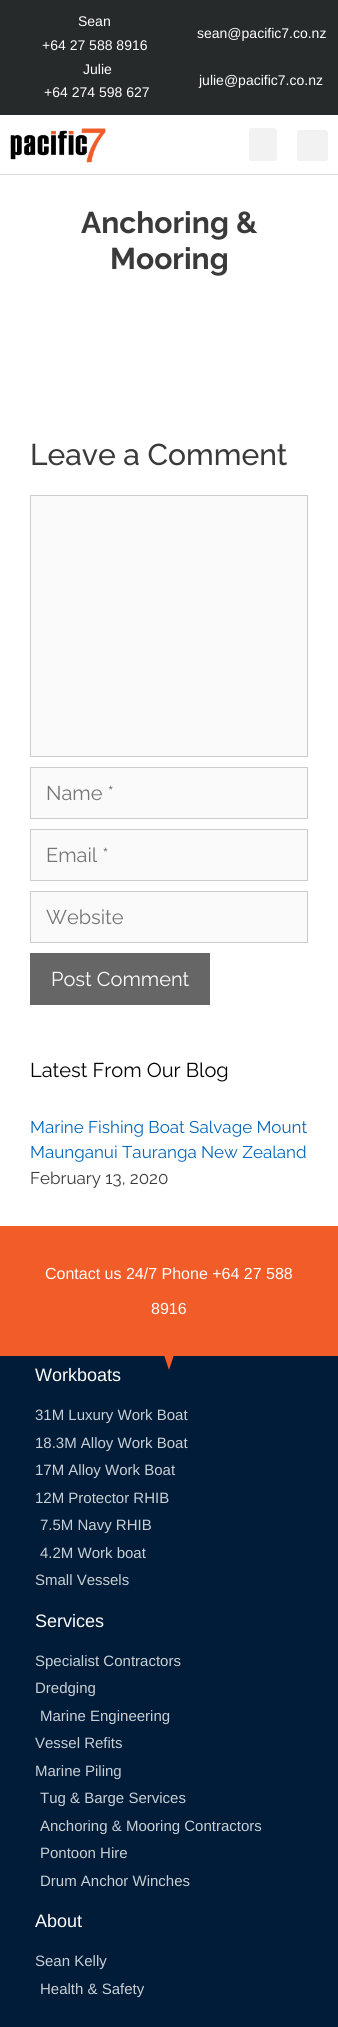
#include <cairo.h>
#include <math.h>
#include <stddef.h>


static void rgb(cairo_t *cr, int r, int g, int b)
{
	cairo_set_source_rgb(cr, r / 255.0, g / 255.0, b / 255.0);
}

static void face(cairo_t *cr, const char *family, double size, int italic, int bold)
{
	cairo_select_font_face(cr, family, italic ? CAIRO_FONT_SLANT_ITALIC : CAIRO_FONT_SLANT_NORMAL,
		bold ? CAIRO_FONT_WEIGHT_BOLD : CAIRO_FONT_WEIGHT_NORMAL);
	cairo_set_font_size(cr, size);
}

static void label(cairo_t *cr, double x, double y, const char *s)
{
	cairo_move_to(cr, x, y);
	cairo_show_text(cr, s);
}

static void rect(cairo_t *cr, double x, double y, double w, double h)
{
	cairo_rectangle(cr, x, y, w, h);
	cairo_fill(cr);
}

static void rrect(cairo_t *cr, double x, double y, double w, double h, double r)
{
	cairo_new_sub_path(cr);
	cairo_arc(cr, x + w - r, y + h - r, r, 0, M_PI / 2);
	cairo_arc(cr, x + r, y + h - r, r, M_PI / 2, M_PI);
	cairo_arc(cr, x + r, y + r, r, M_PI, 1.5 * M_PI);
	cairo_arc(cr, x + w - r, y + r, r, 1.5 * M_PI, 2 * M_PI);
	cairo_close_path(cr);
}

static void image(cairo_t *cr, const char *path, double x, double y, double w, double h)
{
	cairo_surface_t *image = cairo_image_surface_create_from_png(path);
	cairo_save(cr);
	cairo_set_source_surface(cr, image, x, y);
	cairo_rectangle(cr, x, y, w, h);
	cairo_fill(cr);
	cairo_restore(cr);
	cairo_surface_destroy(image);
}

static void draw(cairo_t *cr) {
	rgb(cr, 255, 255, 255);
	cairo_paint(cr);
	rgb(cr, 38, 42, 43);
	rect(cr, 0, 0, 338, 115);
	face(cr, "Liberation Sans", 14, 0, 0);
	rgb(cr, 255, 255, 255);
	label(cr, 78, 26, "Sean");
	label(cr, 42, 50, "+64 27 588 8916");
	label(cr, 197, 38, "sean@pacific7.co.nz");
	label(cr, 83, 74, "Julie");
	label(cr, 44, 97, "+64 274 598 627");
	label(cr, 199, 85, "julie@pacific7.co.nz");
	rgb(cr, 216, 216, 216);
	rect(cr, 0, 174, 338, 1);
	image(cr, "image0.png", 10, 128, 96, 35);
	rgb(cr, 242, 242, 242);
	rrect(cr, 249, 128, 28, 33, 3);
	cairo_fill(cr);
	rrect(cr, 297, 130, 31, 31, 3);
	cairo_fill(cr);
	face(cr, "Raleway", 30, 0, 1);
	rgb(cr, 58, 58, 58);
	label(cr, 81, 233, "Anchoring &");
	label(cr, 110, 269, "Mooring");
	face(cr, "Raleway Medium", 30, 0, 0);
	label(cr, 30, 465, "Leave a Comment");
	rgb(cr, 250, 250, 250);
	cairo_rectangle(cr, 30.5, 495.5, 277, 261);
	cairo_fill_preserve(cr);
	rgb(cr, 204, 204, 204);
	cairo_set_line_width(cr, 1);
	cairo_stroke(cr);
	rgb(cr, 250, 250, 250);
	cairo_rectangle(cr, 30.5, 767.5, 277, 51);
	cairo_fill_preserve(cr);
	rgb(cr, 204, 204, 204);
	cairo_stroke(cr);
	face(cr, "Raleway", 20, 0, 0);
	rgb(cr, 117, 117, 117);
	label(cr, 46, 800, "Name *");
	rgb(cr, 250, 250, 250);
	cairo_rectangle(cr, 30.5, 829.5, 277, 51);
	cairo_fill_preserve(cr);
	rgb(cr, 204, 204, 204);
	cairo_stroke(cr);
	rgb(cr, 117, 117, 117);
	label(cr, 46, 862, "Email *");
	rgb(cr, 250, 250, 250);
	cairo_rectangle(cr, 30.5, 891.5, 277, 51);
	cairo_fill_preserve(cr);
	rgb(cr, 204, 204, 204);
	cairo_stroke(cr);
	rgb(cr, 117, 117, 117);
	label(cr, 46, 924, "Website");
	rgb(cr, 102, 102, 102);
	rect(cr, 30, 953, 180, 52);
	rgb(cr, 255, 255, 255);
	label(cr, 51, 986, "Post Comment");
	rgb(cr, 0, 0, 0);
	label(cr, 30, 1077, "Latest From Our Blog");
	face(cr, "Raleway", 17, 0, 0);
	rgb(cr, 5, 103, 188);
	label(cr, 30, 1133, "Marine Fishing Boat Salvage Mount");
	label(cr, 30, 1158, "Maunganui Tauranga New Zealand");
	rgb(cr, 58, 58, 58);
	label(cr, 30, 1184, "February 13, 2020");
	rgb(cr, 241, 92, 41);
	rect(cr, 0, 1226, 338, 130);
	face(cr, "Liberation Sans", 16, 0, 0);
	rgb(cr, 255, 255, 255);
	label(cr, 45, 1279, "Contact us 24/7 Phone +64 27 588");
	label(cr, 151, 1314, "8916");
	rgb(cr, 0, 28, 56);
	rect(cr, 0, 1356, 338, 671);
	rgb(cr, 241, 92, 41);
	cairo_new_path(cr);
	cairo_move_to(cr, 169, 1370);
	cairo_line_to(cr, 164, 1355);
	cairo_line_to(cr, 174, 1355);
	cairo_close_path(cr);
	cairo_fill(cr);
	face(cr, "Liberation Sans", 18, 0, 0);
	rgb(cr, 255, 255, 255);
	label(cr, 35, 1381, "Workboats");
	face(cr, "Liberation Sans", 15, 0, 0);
	rgb(cr, 201, 207, 213);
	label(cr, 35, 1420, "31M Luxury Work Boat");
	label(cr, 35, 1448, "18.3M Alloy Work Boat");
	label(cr, 35, 1475, "17M Alloy Work Boat");
	label(cr, 35, 1503, "12M Protector RHIB");
	label(cr, 40, 1530, "7.5M Navy RHIB");
	label(cr, 40, 1558, "4.2M Work boat");
	label(cr, 35, 1585, "Small Vessels");
	face(cr, "Liberation Sans", 18, 0, 0);
	rgb(cr, 255, 255, 255);
	label(cr, 35, 1627, "Services");
	face(cr, "Liberation Sans", 15, 0, 0);
	rgb(cr, 201, 207, 213);
	label(cr, 35, 1666, "Specialist Contractors");
	label(cr, 35, 1693, "Dredging");
	label(cr, 40, 1721, "Marine Engineering");
	label(cr, 35, 1748, "Vessel Refits");
	label(cr, 35, 1776, "Marine Piling");
	label(cr, 40, 1803, "Tug & Barge Services");
	label(cr, 40, 1831, "Anchoring & Mooring Contractors");
	label(cr, 40, 1858, "Pontoon Hire");
	label(cr, 40, 1886, "Drum Anchor Winches");
	face(cr, "Liberation Sans", 18, 0, 0);
	rgb(cr, 255, 255, 255);
	label(cr, 35, 1927, "About");
	face(cr, "Liberation Sans", 15, 0, 0);
	rgb(cr, 201, 207, 213);
	label(cr, 35, 1966, "Sean Kelly");
	label(cr, 40, 1994, "Health & Safety");
}

int main(void) {
	cairo_surface_t *surface = cairo_image_surface_create(CAIRO_FORMAT_RGB24, 338, 2027);
	cairo_t *cr = cairo_create(surface);
	cairo_font_options_t *options = cairo_font_options_create();
	cairo_font_options_set_hint_metrics(options, CAIRO_HINT_METRICS_OFF);
	cairo_font_options_set_hint_style(options, CAIRO_HINT_STYLE_NONE);
	cairo_set_font_options(cr, options);
	cairo_set_miter_limit(cr, 4);
	draw(cr);
	cairo_surface_write_to_png(surface, "render.png");
	cairo_font_options_destroy(options);
	cairo_destroy(cr);
	cairo_surface_destroy(surface);
	return 0;
}
